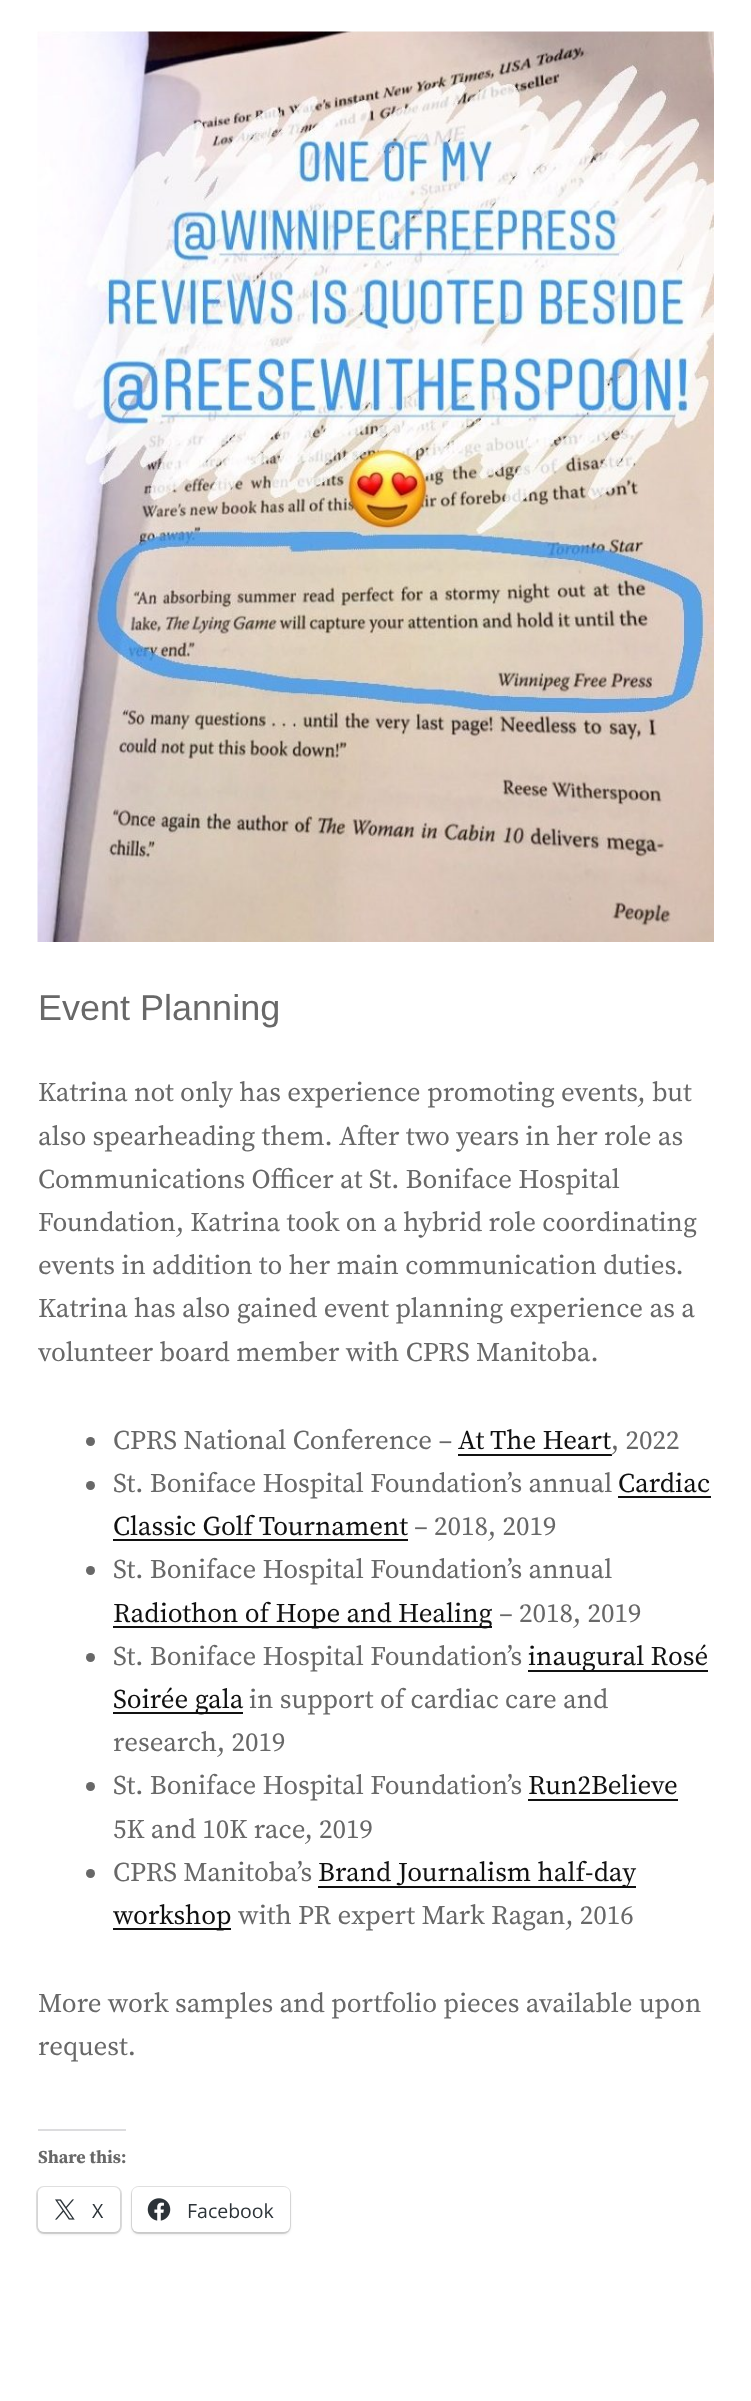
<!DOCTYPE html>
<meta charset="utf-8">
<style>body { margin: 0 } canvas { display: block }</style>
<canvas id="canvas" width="751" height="2401"></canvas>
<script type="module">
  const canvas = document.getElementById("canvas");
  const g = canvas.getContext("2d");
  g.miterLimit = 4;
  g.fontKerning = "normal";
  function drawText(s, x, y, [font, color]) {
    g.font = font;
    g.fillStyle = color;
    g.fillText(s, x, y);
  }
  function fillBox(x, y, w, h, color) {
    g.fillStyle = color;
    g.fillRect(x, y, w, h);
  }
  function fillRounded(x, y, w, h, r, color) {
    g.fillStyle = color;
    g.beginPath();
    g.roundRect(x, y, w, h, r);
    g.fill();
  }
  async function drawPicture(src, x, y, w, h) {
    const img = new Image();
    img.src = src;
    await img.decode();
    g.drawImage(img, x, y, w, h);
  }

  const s1 = ["36px Liberation Sans", "#686868"];
  const s2 = ["27px Source Serif Pro", "#686868"];
  const s3 = ["27px Source Serif Pro", "#111111"];
  const s4 = ["bold 18px Source Serif Pro", "#686868"];
  const s5 = ["19.5px Open Sans", "#2C3338"];

  fillBox(0, 0, 751, 2401, "#FFFFFF");
  await drawPicture("pic1.png", 37, 31, 677, 911);
  drawText("Event Planning", 38, 1020, s1);
  drawText("Katrina not only has experience promoting events, but", 38, 1101, s2);
  drawText("also spearheading them. After two years in her role as", 38, 1145, s2);
  drawText("Communications Officer at St. Boniface Hospital", 38, 1188, s2);
  drawText("Foundation, Katrina took on a hybrid role coordinating", 38, 1231, s2);
  drawText("events in addition to her main communication duties.", 38, 1274, s2);
  drawText("Katrina has also gained event planning experience as a", 38, 1317, s2);
  drawText("volunteer board member with CPRS Manitoba.", 38, 1361, s2);
  g.beginPath();
  g.arc(90.5, 1441.5, 4.5, 0, Math.PI * 2);
  g.fill();
  drawText("CPRS National Conference –", 113, 1449, s2);
  drawText("At The Heart", 458, 1449, s3);
  fillBox(458, 1454, 154, 2, "#111111");
  drawText(", 2022", 611, 1449, s2);
  g.beginPath();
  g.arc(90.5, 1485.5, 4.5, 0, Math.PI * 2);
  g.fill();
  drawText("St. Boniface Hospital Foundation’s annual", 113, 1492, s2);
  drawText("Cardiac", 618, 1492, s3);
  fillBox(618, 1496, 93, 2, "#111111");
  drawText("Classic Golf Tournament", 113, 1535, s3);
  fillBox(113, 1539, 295, 2, "#111111");
  drawText("– 2018, 2019", 414, 1535, s2);
  g.beginPath();
  g.arc(90.5, 1570.5, 4.5, 0, Math.PI * 2);
  g.fill();
  drawText("St. Boniface Hospital Foundation’s annual", 113, 1578, s2);
  fillBox(113, 1626, 379, 2, "#111111");
  drawText("Radiothon of Hope and Healing", 113, 1622, s3);
  drawText("– 2018, 2019", 499, 1622, s2);
  g.beginPath();
  g.arc(90.5, 1657.5, 4.5, 0, Math.PI * 2);
  g.fill();
  drawText("St. Boniface Hospital Foundation’s", 113, 1665, s2);
  fillBox(528, 1670, 180, 2, "#111111");
  drawText("inaugural Rosé", 528, 1665, s3);
  fillBox(113, 1712, 130, 2, "#111111");
  drawText("Soirée gala", 113, 1708, s3);
  drawText("in support of cardiac care and", 249, 1708, s2);
  drawText("research, 2019", 113, 1751, s2);
  g.beginPath();
  g.arc(90.5, 1786.5, 4.5, 0, Math.PI * 2);
  g.fill();
  drawText("St. Boniface Hospital Foundation’s", 113, 1794, s2);
  drawText("Run2Believe", 528, 1794, s3);
  fillBox(528, 1799, 150, 2, "#111111");
  drawText("5K and 10K race, 2019", 113, 1838, s2);
  g.beginPath();
  g.arc(90.5, 1873.5, 4.5, 0, Math.PI * 2);
  g.fill();
  drawText("CPRS Manitoba’s", 113, 1881, s2);
  fillBox(318, 1886, 318, 2, "#111111");
  drawText("Brand Journalism half-day", 318, 1881, s3);
  fillBox(113, 1928, 118, 2, "#111111");
  drawText("workshop", 113, 1924, s3);
  drawText("with PR expert Mark Ragan, 2016", 238, 1924, s2);
  drawText("More work samples and portfolio pieces available upon", 38, 2012, s2);
  drawText("request.", 38, 2055, s2);
  fillBox(38, 2129, 88, 2, "#DCDCDE");
  drawText("Share this:", 38, 2163, s4);
  g.beginPath();
  g.roundRect(37, 2187, 84, 46, 7);
  g.strokeStyle = "#E0E0E0";
  g.lineWidth = 2;
  g.stroke();
  g.fillStyle = "rgba(0, 0, 0, 0.12)";
  g.filter = "blur(1.5px)";
  g.beginPath();
  g.roundRect(38, 2189, 82, 45, 6);
  g.fill();
  g.filter = "none";
  fillRounded(38, 2187, 82, 45, 6, "#FFFFFF");
  await drawPicture("pic2.png", 55, 2199, 20, 21);
  drawText("X", 92, 2218, s5);
  g.beginPath();
  g.roundRect(132, 2187, 158, 46, 7);
  g.stroke();
  g.fillStyle = "rgba(0, 0, 0, 0.12)";
  g.filter = "blur(1.5px)";
  g.beginPath();
  g.roundRect(132, 2189, 158, 45, 6);
  g.fill();
  g.filter = "none";
  fillRounded(132, 2187, 158, 45, 6, "#FFFFFF");
  await drawPicture("pic3.png", 147, 2198, 24, 23);
  drawText("Facebook", 187, 2218, s5);
</script>
